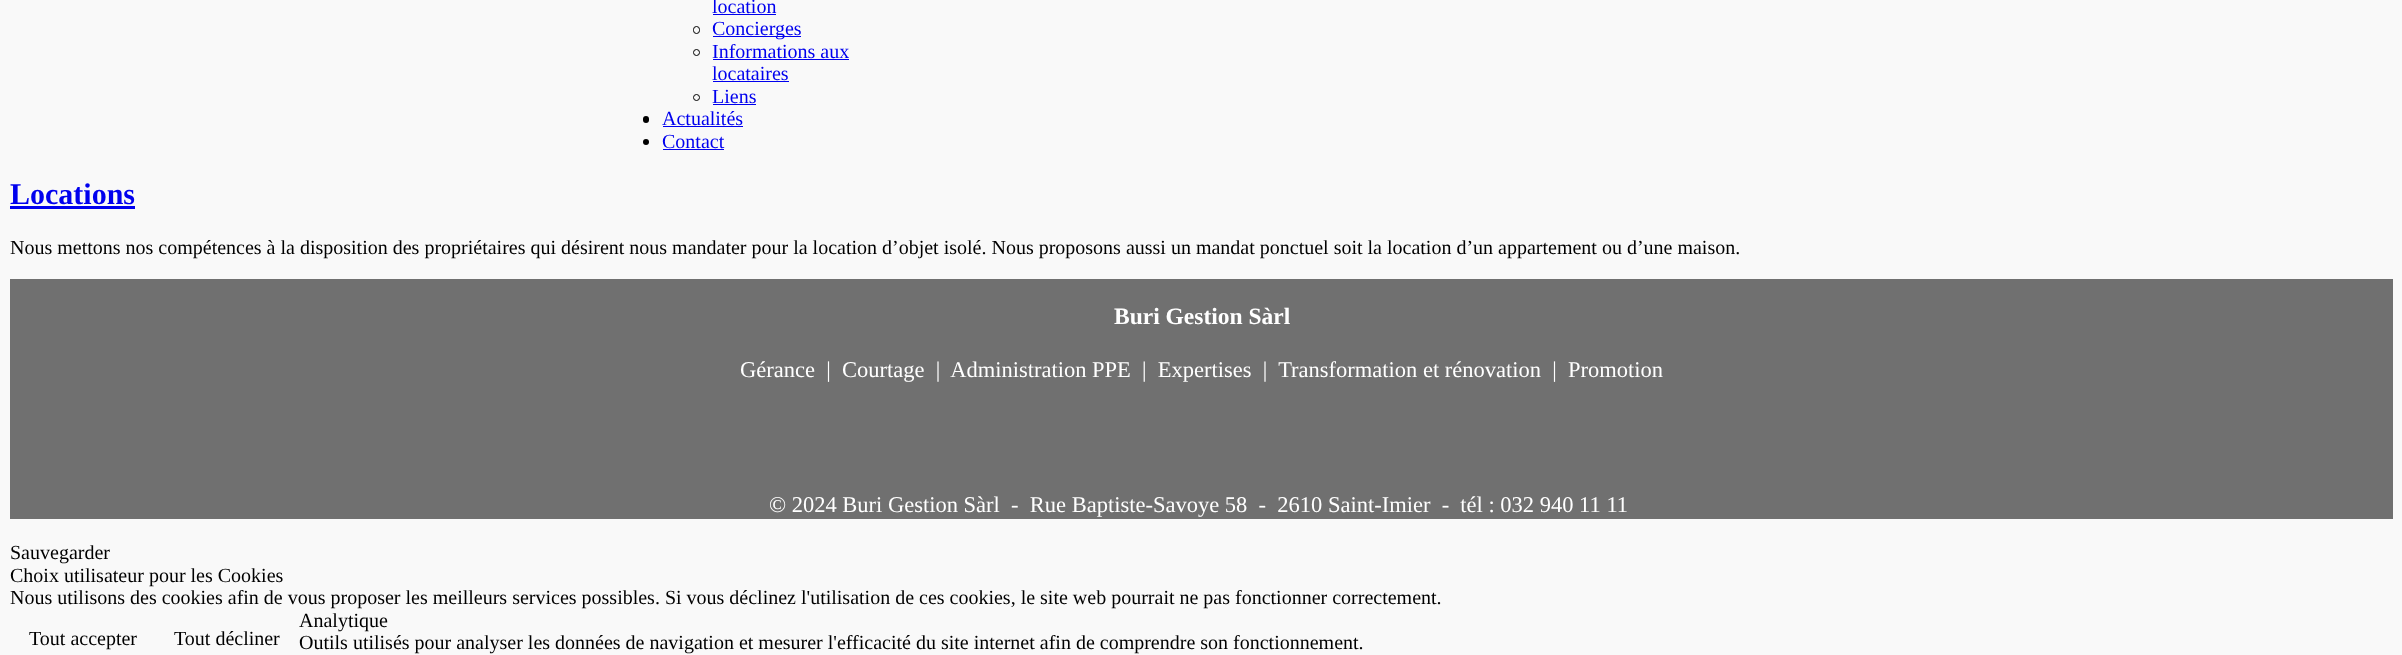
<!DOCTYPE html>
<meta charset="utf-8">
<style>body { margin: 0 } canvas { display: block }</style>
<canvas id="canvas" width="2402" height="655"></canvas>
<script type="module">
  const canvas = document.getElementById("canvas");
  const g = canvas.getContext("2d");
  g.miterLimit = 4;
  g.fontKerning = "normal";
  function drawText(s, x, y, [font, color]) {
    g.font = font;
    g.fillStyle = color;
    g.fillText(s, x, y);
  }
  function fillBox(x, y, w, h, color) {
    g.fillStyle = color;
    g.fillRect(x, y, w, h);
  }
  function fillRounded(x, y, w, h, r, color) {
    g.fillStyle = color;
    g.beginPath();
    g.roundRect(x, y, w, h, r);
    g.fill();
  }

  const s1 = ["20px Liberation Serif", "#0000EE"];
  const s2 = ["bold 30px Liberation Serif", "#0000EE"];
  const s3 = ["20px Liberation Serif", "#000000"];
  const s4 = ["bold 23.5px Liberation Serif", "#FFFFFF"];
  const s5 = ["22.5px Liberation Serif", "#FFFFFF"];

  fillBox(0, 0, 2402, 655, "#F9F9F9");
  drawText("location", 712, 13, s1);
  fillBox(713, 14, 63, 1, "#0000EE");
  g.beginPath();
  g.roundRect(693.5, 26.5, 6, 7, 3);
  g.strokeStyle = "#000000";
  g.stroke();
  fillBox(713, 36, 88, 1, "#0000EE");
  drawText("Concierges", 712, 35, s1);
  g.beginPath();
  g.arc(696.5, 52.5, 3, 0, Math.PI * 2);
  g.stroke();
  drawText("Informations aux", 712, 58, s1);
  fillBox(713, 59, 136, 1, "#0000EE");
  drawText("locataires", 712, 80, s1);
  fillBox(713, 81, 76, 1, "#0000EE");
  g.beginPath();
  g.arc(696.5, 97.5, 3, 0, Math.PI * 2);
  g.stroke();
  drawText("Liens", 712, 103, s1);
  fillBox(713, 104, 43, 1, "#0000EE");
  fillRounded(643, 116, 6, 7, 3, "#000000");
  drawText("Actualités", 662, 125, s1);
  fillBox(663, 126, 80, 1, "#0000EE");
  g.fillStyle = "#000000";
  g.beginPath();
  g.arc(646, 142, 3, 0, Math.PI * 2);
  g.fill();
  drawText("Contact", 662, 148, s1);
  fillBox(663, 149, 61, 1, "#0000EE");
  drawText("Locations", 10, 204, s2);
  fillBox(10, 206, 125, 3, "#0000EE");
  drawText("Nous mettons nos compétences à la disposition des propriétaires qui désirent nous mandater pour la location d’objet isolé. Nous proposons aussi un mandat ponctuel soit la location d’un appartement ou d’une maison.", 10, 254, s3);
  fillBox(10, 279, 2383, 240, "#707070");
  drawText("Buri Gestion Sàrl", 1114, 324, s4);
  drawText("Gérance  |  Courtage  |  Administration PPE  |  Expertises  |  Transformation et rénovation  |  Promotion", 740, 377, s5);
  drawText("© 2024 Buri Gestion Sàrl  -  Rue Baptiste-Savoye 58  -  2610 Saint-Imier  -  tél : 032 940 11 11", 769, 512, s5);
  drawText("Sauvegarder", 10, 559, s3);
  drawText("Choix utilisateur pour les Cookies", 10, 582, s3);
  drawText("Nous utilisons des cookies afin de vous proposer les meilleurs services possibles. Si vous déclinez l'utilisation de ces cookies, le site web pourrait ne pas fonctionner correctement.", 10, 604, s3);
  drawText("Tout accepter", 29, 645, s3);
  drawText("Tout décliner", 174, 645, s3);
  drawText("Analytique", 299, 627, s3);
  drawText("Outils utilisés pour analyser les données de navigation et mesurer l'efficacité du site internet afin de comprendre son fonctionnement.", 299, 649, s3);
</script>
